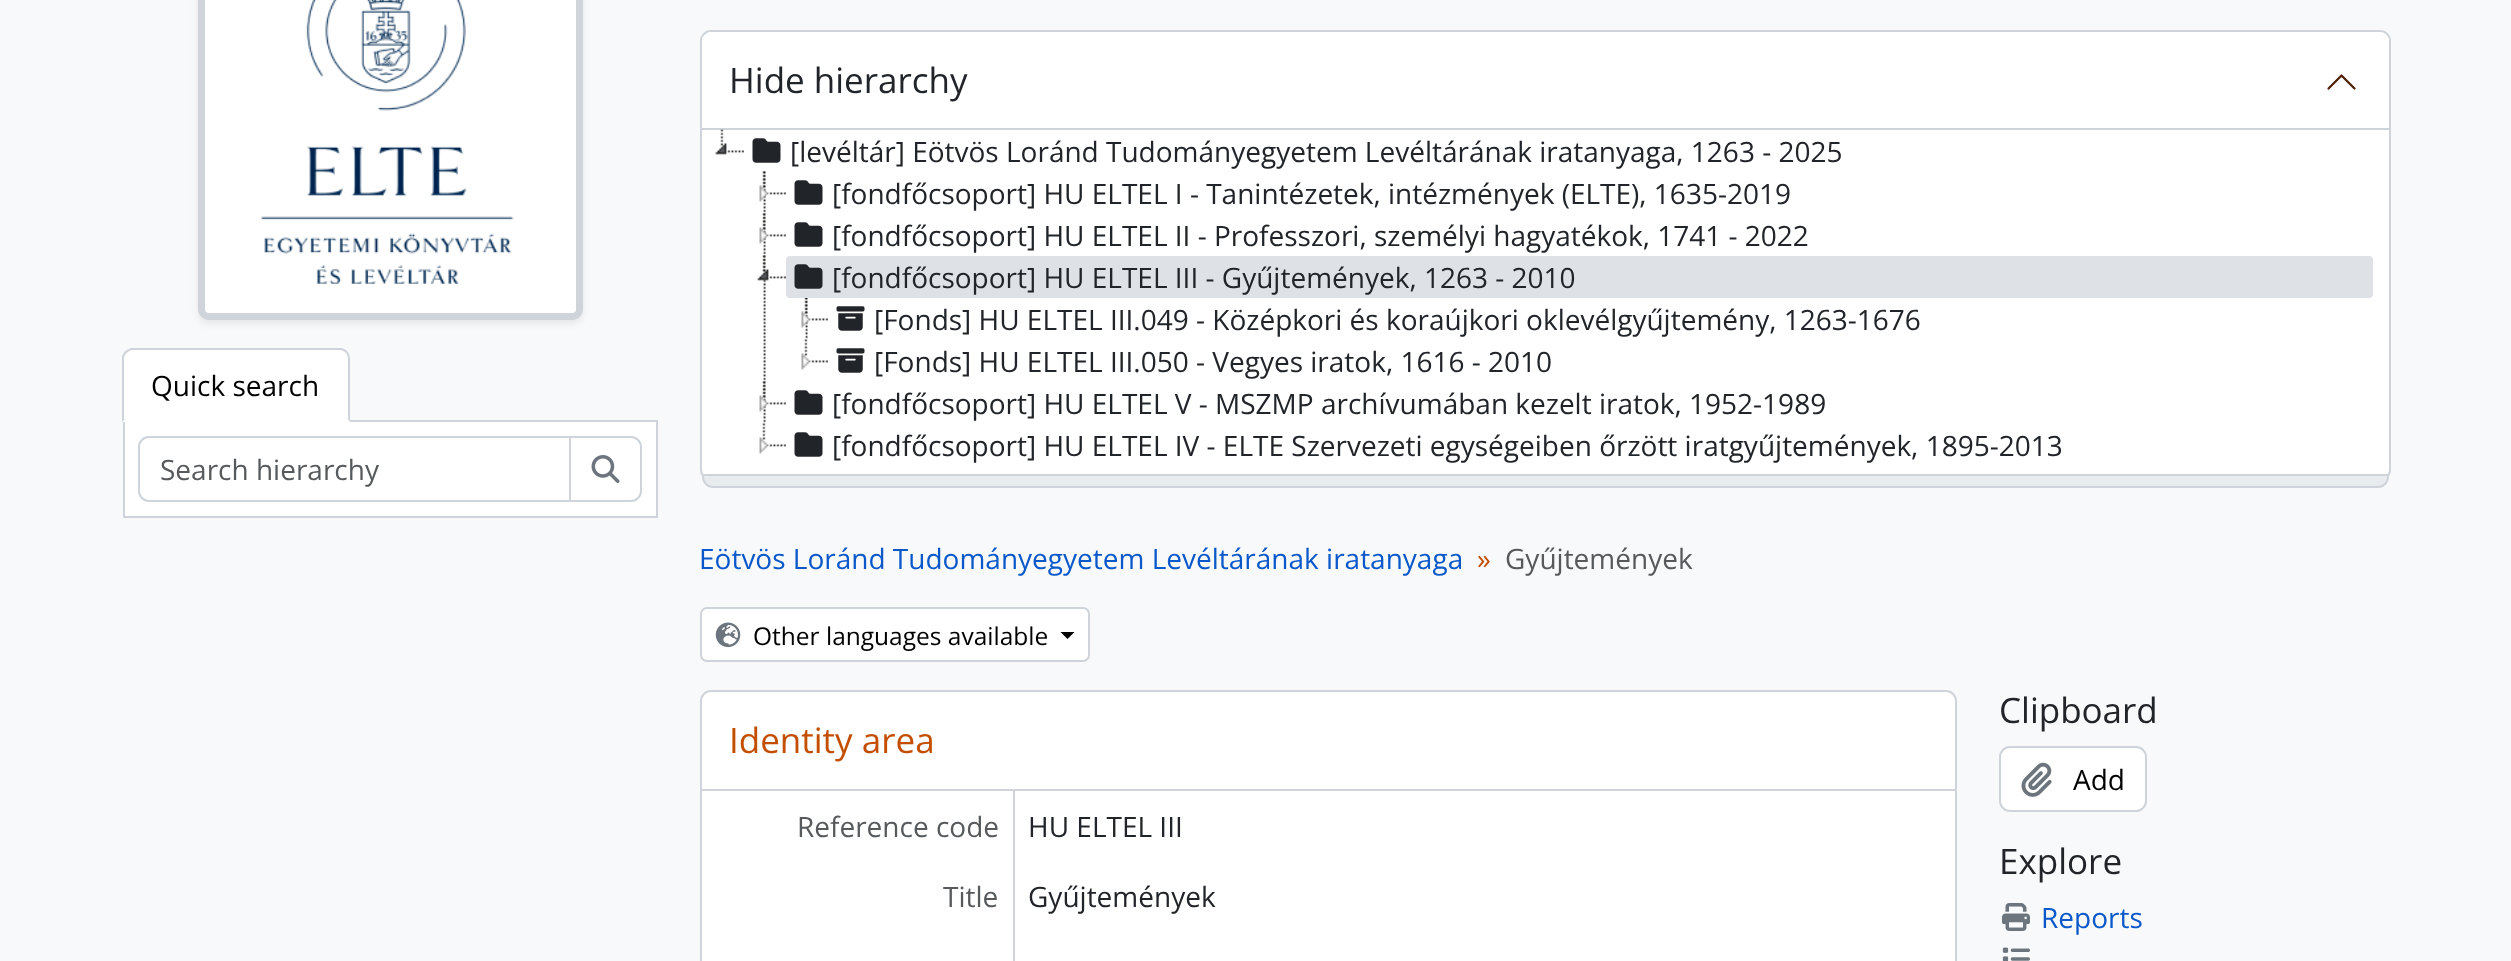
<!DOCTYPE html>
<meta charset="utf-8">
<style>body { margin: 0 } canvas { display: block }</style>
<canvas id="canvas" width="2511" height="961"></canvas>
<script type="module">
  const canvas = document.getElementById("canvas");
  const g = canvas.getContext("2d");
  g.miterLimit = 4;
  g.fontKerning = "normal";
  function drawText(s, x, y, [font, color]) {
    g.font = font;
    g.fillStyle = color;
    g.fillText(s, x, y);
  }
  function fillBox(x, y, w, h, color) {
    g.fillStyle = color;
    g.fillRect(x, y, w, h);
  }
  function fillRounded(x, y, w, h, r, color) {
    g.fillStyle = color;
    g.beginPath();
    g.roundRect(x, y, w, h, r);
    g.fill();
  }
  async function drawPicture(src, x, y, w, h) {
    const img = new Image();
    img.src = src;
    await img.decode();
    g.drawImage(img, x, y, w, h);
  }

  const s1 = ["28px Open Sans", "#000000"];
  const s2 = ["28px Open Sans", "#575A5D"];
  const s3 = ["35px Open Sans", "#212529"];
  const s4 = ["28px Open Sans", "#212529"];
  const s5 = ["28px Open Sans", "#0A58CA"];
  const s6 = ["28px Open Sans", "#C44E00"];
  const s7 = ["24.5px Open Sans", "#000000"];
  const s8 = ["35px Open Sans", "#C44E00"];

  fillBox(0, 0, 2511, 961, "#F8F9FA");
  g.fillStyle = "rgba(0, 0, 0, 0.07)";
  g.filter = "blur(3.5px)";
  g.beginPath();
  g.roundRect(198, -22, 385, 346, 11);
  g.fill();
  g.filter = "none";
  g.fillStyle = "#FFFFFF";
  g.beginPath();
  g.roundRect(201.5, -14.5, 378, 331, 7.5);
  g.fill();
  g.strokeStyle = "#CED4DA";
  g.lineWidth = 7;
  g.stroke();
  await drawPicture("pic1.png", 260, 0, 254, 285);
  g.beginPath();
  g.rect(124, 421, 533, 96);
  g.fill();
  g.lineWidth = 2;
  g.stroke();
  g.beginPath();
  g.roundRect(123, 348, 227, 74, [11, 11, 0, 0]);
  g.fill();
  g.fillStyle = "#CED4DA";
  g.beginPath();
  g.moveTo(133, 350);
  g.bezierCurveTo(131, 350, 128, 351, 127, 353);
  g.lineTo(125, 351);
  g.bezierCurveTo(127, 350, 129, 349, 131, 348);
  g.lineTo(342, 348);
  g.bezierCurveTo(344, 349, 346, 350, 347, 351);
  g.lineTo(346, 353);
  g.bezierCurveTo(344, 351, 342, 350, 340, 350);
  g.closePath();
  g.fill();
  g.beginPath();
  g.moveTo(350, 422);
  g.lineTo(350, 359);
  g.bezierCurveTo(350, 356, 349, 353, 347, 351);
  g.lineTo(346, 353);
  g.bezierCurveTo(347, 354, 348, 357, 348, 359);
  g.lineTo(348, 420);
  g.closePath();
  g.fill();
  g.fillStyle = "#FFFFFF";
  g.beginPath();
  g.moveTo(350, 422);
  g.lineTo(348, 420);
  g.lineTo(124, 420);
  g.lineTo(122, 422);
  g.closePath();
  g.fill();
  g.fillStyle = "#CED4DA";
  g.beginPath();
  g.moveTo(122, 422);
  g.lineTo(122, 356);
  g.lineTo(125, 351);
  g.lineTo(127, 353);
  g.bezierCurveTo(125, 354, 124, 356, 124, 359);
  g.lineTo(124, 420);
  g.closePath();
  g.fill();
  drawText("Quick search", 151, 396, s1);
  g.beginPath();
  g.roundRect(139, 437, 431, 64, [10, 0, 0, 10]);
  g.stroke();
  drawText("Search hierarchy", 160, 480, s2);
  g.fillStyle = "#FFFFFF";
  g.beginPath();
  g.roundRect(570, 437, 71, 64, [0, 10, 10, 0]);
  g.fill();
  g.stroke();
  await drawPicture("pic2.png", 591, 455, 29, 28);
  g.beginPath();
  g.roundRect(701, 31, 1689, 449, 10);
  g.fill();
  g.stroke();
  g.beginPath();
  g.roundRect(702, 32, 1687, 98, [9, 9, 0, 0]);
  g.fill();
  fillBox(702, 128, 1687, 2, "#CED4DA");
  drawText("Hide hierarchy", 729, 93, s3);
  g.beginPath();
  g.moveTo(2354.5, 88.5);
  g.lineTo(2341.5, 75.5);
  g.lineTo(2328.5, 88.5);
  g.strokeStyle = "#4E1F00";
  g.lineWidth = 2.2;
  g.lineCap = "round";
  g.lineJoin = "round";
  g.stroke();
  await drawPicture("pic3.png", 715, 129, 29, 26);
  await drawPicture("pic4.png", 752, 138, 29, 25);
  drawText("[levéltár] Eötvös Loránd Tudományegyetem Levéltárának iratanyaga, 1263 - 2025", 790, 162, s4);
  await drawPicture("pic5.png", 763, 171, 3, 42);
  await drawPicture("pic6.png", 759, 171, 27, 31);
  await drawPicture("pic4.png", 794, 180, 29, 25);
  drawText("[fondfőcsoport] HU ELTEL I - Tanintézetek, intézmények (ELTE), 1635-2019", 832, 204, s4);
  await drawPicture("pic5.png", 763, 213, 3, 42);
  await drawPicture("pic6.png", 759, 213, 27, 31);
  await drawPicture("pic4.png", 794, 222, 29, 25);
  drawText("[fondfőcsoport] HU ELTEL II - Professzori, személyi hagyatékok, 1741 - 2022", 832, 246, s4);
  await drawPicture("pic7.png", 763, 255, 3, 126);
  await drawPicture("pic8.png", 757, 255, 29, 26);
  fillRounded(786, 256, 1587, 42, 4, "#DEE2E6");
  await drawPicture("pic9.png", 794, 264, 29, 25);
  drawText("[fondfőcsoport] HU ELTEL III - Gyűjtemények, 1263 - 2010", 832, 288, s4);
  await drawPicture("pic10.png", 805, 298, 3, 41);
  await drawPicture("pic11.png", 801, 298, 27, 30);
  await drawPicture("pic12.png", 836, 306, 29, 25);
  drawText("[Fonds] HU ELTEL III.049 - Középkori és koraújkori oklevélgyűjtemény, 1263-1676", 874, 330, s4);
  await drawPicture("pic13.png", 801, 339, 27, 31);
  await drawPicture("pic12.png", 836, 348, 29, 25);
  drawText("[Fonds] HU ELTEL III.050 - Vegyes iratok, 1616 - 2010", 874, 372, s4);
  await drawPicture("pic5.png", 763, 381, 3, 42);
  await drawPicture("pic6.png", 759, 381, 27, 31);
  await drawPicture("pic4.png", 794, 390, 29, 25);
  drawText("[fondfőcsoport] HU ELTEL V - MSZMP archívumában kezelt iratok, 1952-1989", 832, 414, s4);
  await drawPicture("pic13.png", 759, 423, 27, 31);
  await drawPicture("pic4.png", 794, 432, 29, 25);
  drawText("[fondfőcsoport] HU ELTEL IV - ELTE Szervezeti egységeiben őrzött iratgyűjtemények, 1895-2013", 832, 456, s4);
  g.fillStyle = "#E9ECEF";
  g.beginPath();
  g.roundRect(703, 475, 1685, 12, [0, 0, 10, 10]);
  g.fill();
  g.strokeStyle = "#CED4DA";
  g.lineWidth = 2;
  g.lineJoin = "miter";
  g.stroke();
  drawText("Eötvös Loránd Tudományegyetem Levéltárának iratanyaga", 699, 569, s5);
  drawText("»", 1477, 569, s6);
  drawText("Gyűjtemények", 1505, 569, s2);
  g.fillStyle = "#FFFFFF";
  g.beginPath();
  g.roundRect(701, 608, 388, 53, 6);
  g.fill();
  g.stroke();
  await drawPicture("pic14.png", 715, 622, 26, 26);
  drawText("Other languages available", 753, 645, s7);
  g.beginPath();
  g.moveTo(1060.5, 632);
  g.lineTo(1074.5, 632);
  g.lineTo(1067.5, 639);
  g.closePath();
  g.fill();
  g.fillStyle = "#FFFFFF";
  g.beginPath();
  g.roundRect(701, 691, 1255, 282, 10);
  g.fill();
  g.stroke();
  fillBox(702, 789, 1253, 2, "#CED4DA");
  drawText("Identity area", 729, 753, s8);
  fillBox(1013, 791, 2, 170, "#CED4DA");
  drawText("Reference code", 797, 837, s2);
  drawText("HU ELTEL III", 1028, 837, s4);
  drawText("Title", 943, 907, s2);
  drawText("Gyűjtemények", 1028, 907, s4);
  drawText("Clipboard", 1999, 723, s3);
  g.fillStyle = "#FFFFFF";
  g.beginPath();
  g.roundRect(2000, 747, 146, 64, 10);
  g.fill();
  g.stroke();
  await drawPicture("pic15.png", 2021, 762, 31, 35);
  drawText("Add", 2073, 790, s1);
  drawText("Explore", 1999, 874, s3);
  await drawPicture("pic16.png", 2002, 903, 28, 28);
  drawText("Reports", 2041, 928, s5);
  await drawPicture("pic17.png", 2002, 947, 28, 14);
</script>
